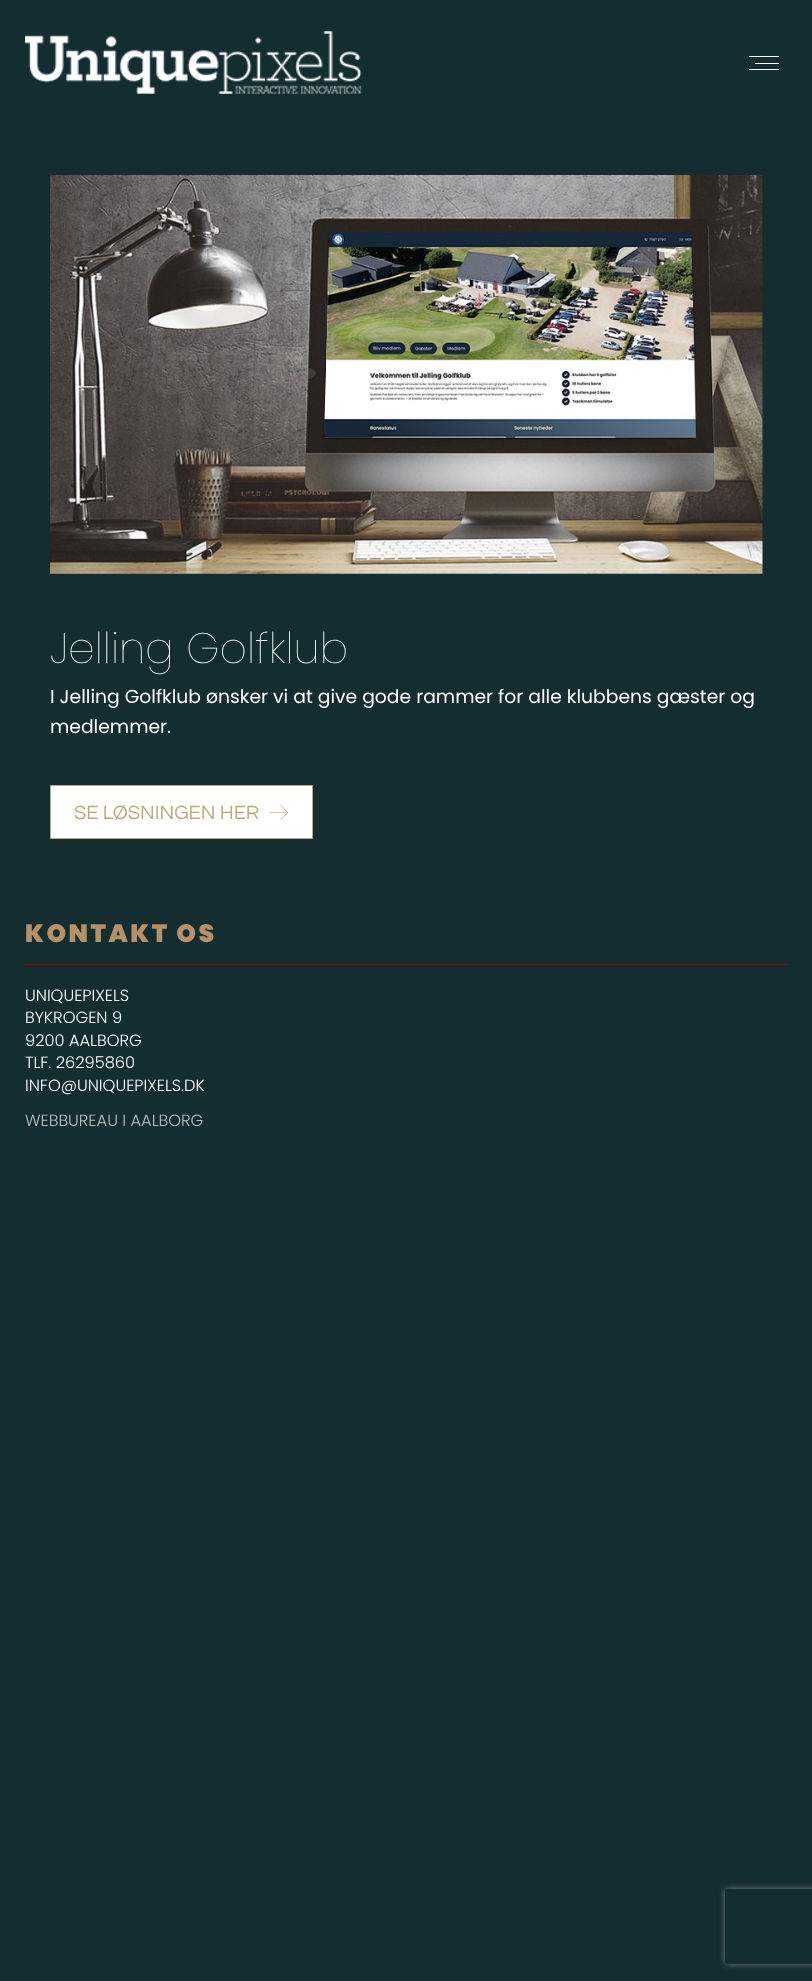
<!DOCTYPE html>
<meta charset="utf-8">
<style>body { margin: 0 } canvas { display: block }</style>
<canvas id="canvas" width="812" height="1981"></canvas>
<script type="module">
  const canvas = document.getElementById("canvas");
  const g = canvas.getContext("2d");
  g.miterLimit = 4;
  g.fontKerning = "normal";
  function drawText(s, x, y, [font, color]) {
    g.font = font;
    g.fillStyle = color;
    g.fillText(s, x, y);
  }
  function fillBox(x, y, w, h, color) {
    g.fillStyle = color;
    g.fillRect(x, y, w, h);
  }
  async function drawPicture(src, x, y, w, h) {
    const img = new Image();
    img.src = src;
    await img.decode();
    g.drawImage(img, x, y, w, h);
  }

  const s1 = ["100 42.5px Poppins", "#FFFFFF"];
  const s2 = ["18.75px Poppins", "#FFFFFF"];
  const s3 = ["20px Questrial", "#BCA97C"];
  const s4 = ["900 25px Poppins", "#B69167"];
  const s5 = ["300 16.25px Poppins", "#FFFFFF"];
  const s6 = ["300 16.25px Poppins", "#BFBFBF"];

  fillBox(0, 0, 812, 1981, "#132D30");
  await drawPicture("pic1.png", 25, 31, 337, 63);
  fillBox(749, 56, 30, 1, "#FFFFFF");
  fillBox(755, 63, 24, 1, "#FFFFFF");
  fillBox(749, 69, 30, 1, "#FFFFFF");
  await drawPicture("pic2.png", 50, 175, 713, 399);
  drawText("Jelling Golfklub", 50, 663, s1);
  drawText("I Jelling Golfklub ønsker vi at give gode rammer for alle klubbens gæster og", 50, 703, s2);
  drawText("medlemmer.", 50, 733, s2);
  g.beginPath();
  g.rect(50.5, 785.5, 262, 53);
  g.fill();
  g.strokeStyle = "#BCA97C";
  g.stroke();
  drawText("SE LØSNINGEN HER", 74, 819, s3);
  await drawPicture("pic3.png", 269, 805, 20, 15);
  fillBox(25, 964, 763, 1, "#990000");
  g.letterSpacing = "2.5px";
  drawText("KONTAKT OS", 25, 942, s4);
  g.letterSpacing = "0px";
  drawText("UNIQUEPIXELS", 25, 1001, s5);
  drawText("BYKROGEN 9", 25, 1023, s5);
  drawText("9200 AALBORG", 25, 1046, s5);
  drawText("TLF. 26295860", 25, 1068, s5);
  drawText("INFO@UNIQUEPIXELS.DK", 25, 1091, s5);
  drawText("WEBBUREAU I AALBORG", 25, 1126, s6);
  g.save();
  g.beginPath();
  g.moveTo(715, 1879);
  g.lineTo(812, 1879);
  g.lineTo(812, 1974);
  g.lineTo(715, 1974);
  g.closePath();
  g.moveTo(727.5, 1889);
  g.lineTo(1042.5, 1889);
  g.bezierCurveTo(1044, 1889, 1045, 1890, 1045, 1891.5);
  g.lineTo(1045, 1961.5);
  g.bezierCurveTo(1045, 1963, 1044, 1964, 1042.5, 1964);
  g.lineTo(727.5, 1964);
  g.bezierCurveTo(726, 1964, 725, 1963, 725, 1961.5);
  g.lineTo(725, 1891.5);
  g.bezierCurveTo(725, 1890, 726, 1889, 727.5, 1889);
  g.closePath();
  g.clip("evenodd");
  g.fillStyle = "#808080";
  g.filter = "blur(3px)";
  g.beginPath();
  g.roundRect(725, 1889, 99, 75, 2.5);
  g.fill();
  g.filter = "none";
  g.restore();
</script>
